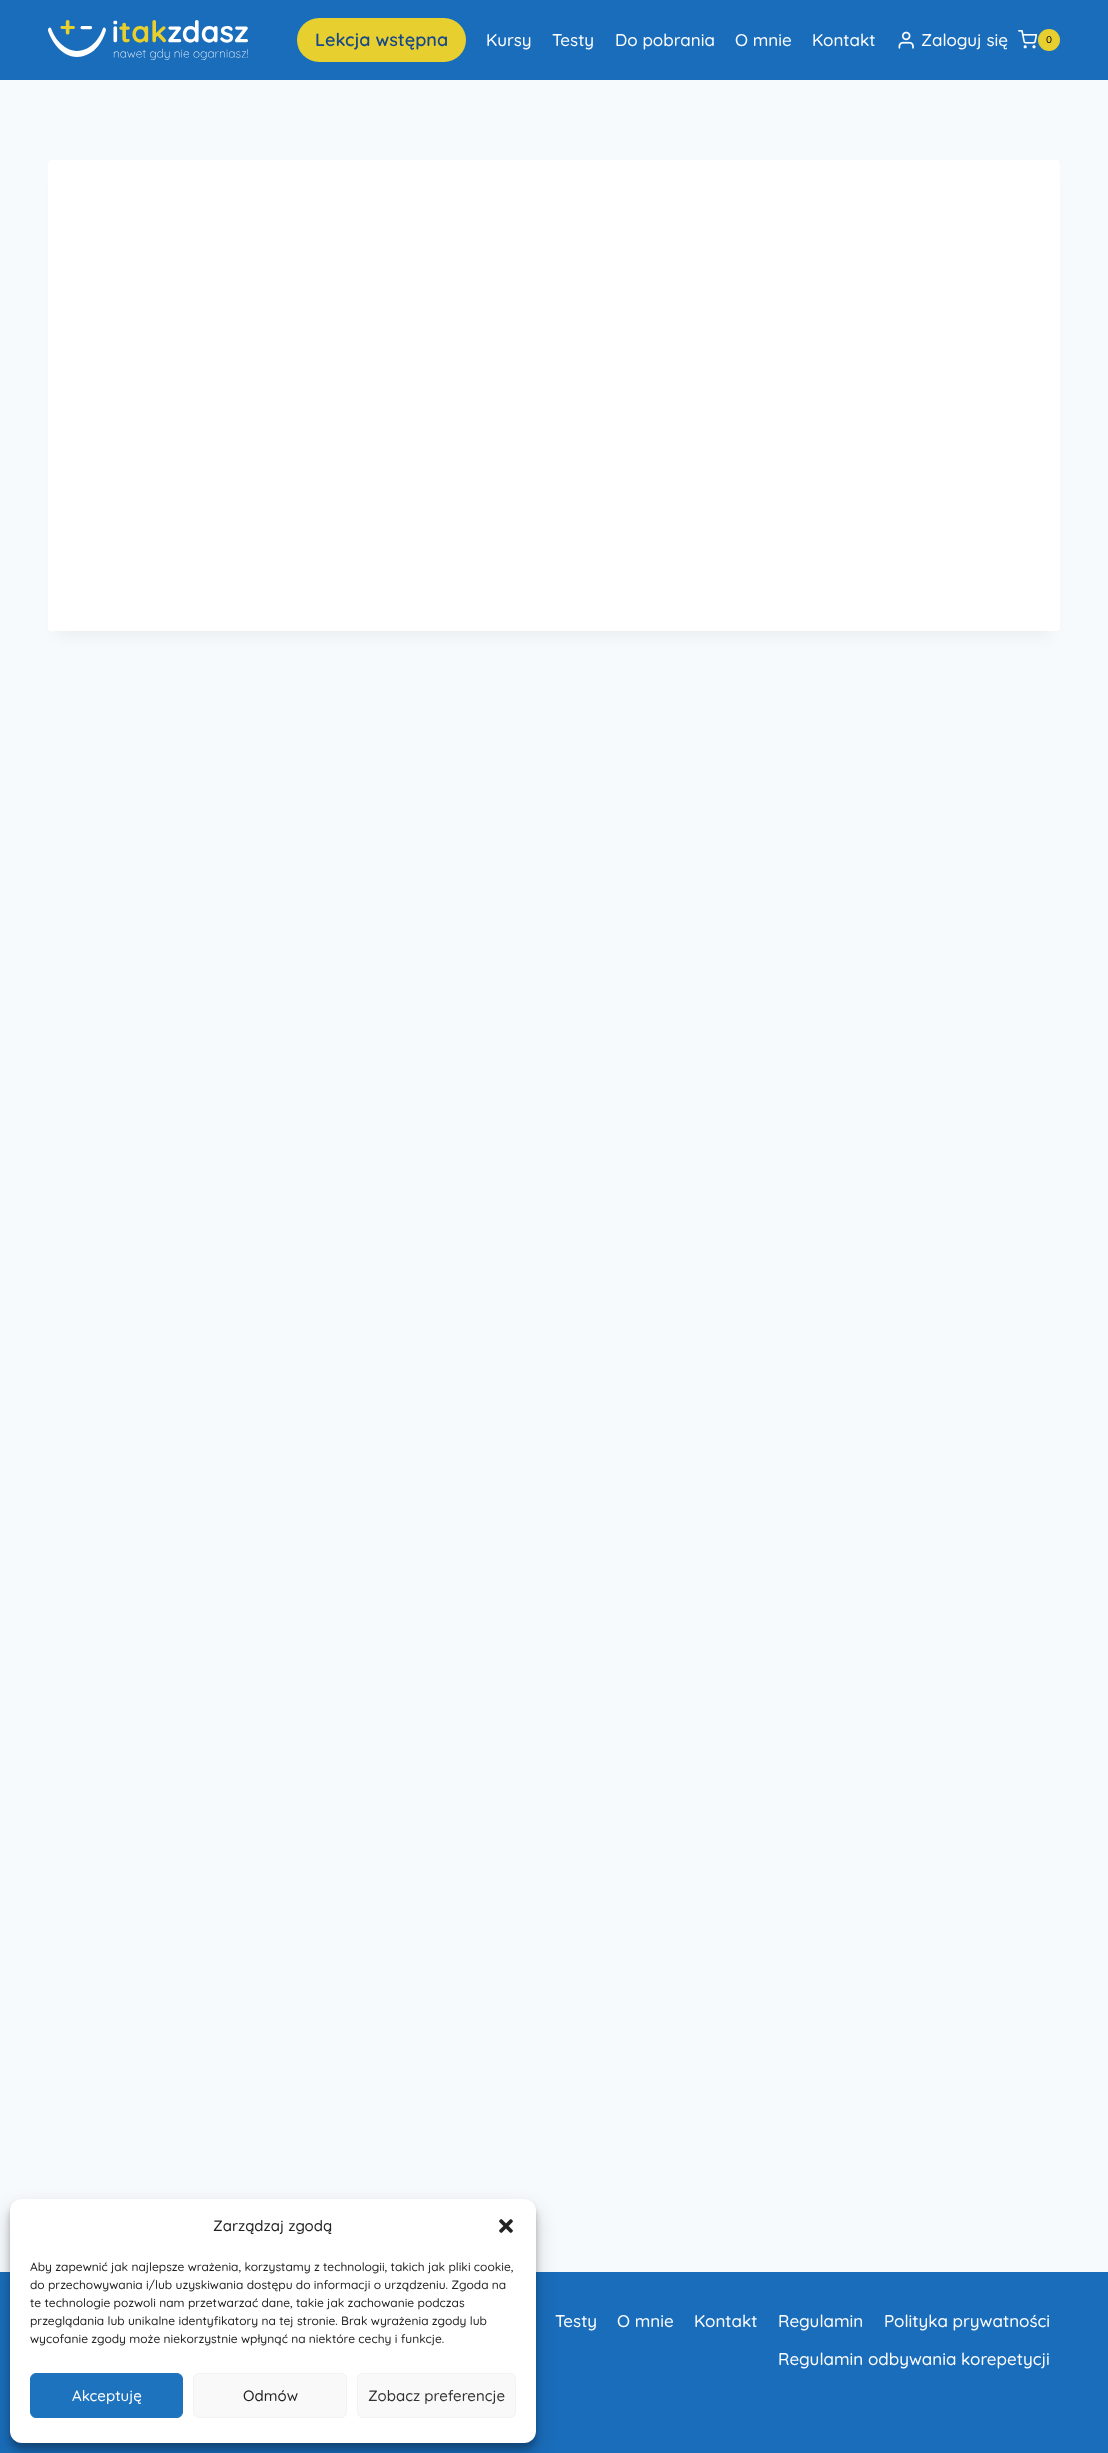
<!DOCTYPE html>
<meta charset="utf-8">
<style>body { margin: 0 } canvas { display: block }</style>
<canvas id="canvas" width="1108" height="2453"></canvas>
<script type="module">
  const canvas = document.getElementById("canvas");
  const g = canvas.getContext("2d");
  g.miterLimit = 4;
  g.fontKerning = "normal";
  function drawText(s, x, y, [font, color]) {
    g.font = font;
    g.fillStyle = color;
    g.fillText(s, x, y);
  }
  function fillBox(x, y, w, h, color) {
    g.fillStyle = color;
    g.fillRect(x, y, w, h);
  }
  function fillRounded(x, y, w, h, r, color) {
    g.fillStyle = color;
    g.beginPath();
    g.roundRect(x, y, w, h, r);
    g.fill();
  }
  async function drawPicture(src, x, y, w, h) {
    const img = new Image();
    img.src = src;
    await img.decode();
    g.drawImage(img, x, y, w, h);
  }

  const s1 = ["500 15px Quicksand", "#222222"];
  const s2 = ["500 12px Quicksand", "#222222"];
  const s3 = ["500 15px Quicksand", "#FFFFFF"];
  const s4 = ["500 15px Quicksand", "#333333"];
  const s5 = ["600 18px Quicksand", "#174988"];
  const s6 = ["500 17px Quicksand", "#FFFFFF"];
  const s7 = ["500 10px Quicksand", "#000000"];

  fillBox(0, 0, 1108, 2453, "#F7FAFC");
  fillBox(0, 2272, 1108, 181, "#1A6DBB");
  g.fillStyle = "rgba(0, 0, 0, 0.23)";
  g.filter = "blur(3px)";
  g.beginPath();
  g.roundRect(10, 2205, 526, 244, 12);
  g.fill();
  g.filter = "none";
  g.fillStyle = "rgba(0, 0, 0, 0.19)";
  g.filter = "blur(10px)";
  g.beginPath();
  g.roundRect(10, 2209, 526, 244, 12);
  g.fill();
  g.filter = "none";
  fillRounded(10, 2199, 526, 244, 12, "#FFFFFF");
  drawText("Zarządzaj zgodą", 213, 2231, s1);
  await drawPicture("pic1.png", 499, 2219, 14, 14);
  drawText("Aby zapewnić jak najlepsze wrażenia, korzystamy z technologii, takich jak pliki cookie,", 30, 2271, s2);
  drawText("do przechowywania i/lub uzyskiwania dostępu do informacji o urządzeniu. Zgoda na", 30, 2289, s2);
  drawText("te technologie pozwoli nam przetwarzać dane, takie jak zachowanie podczas", 30, 2307, s2);
  drawText("przeglądania lub unikalne identyfikatory na tej stronie. Brak wyrażenia zgody lub", 30, 2325, s2);
  drawText("wycofanie zgody może niekorzystnie wpłynąć na niektóre cechy i funkcje.", 30, 2343, s2);
  g.fillStyle = "#1E73BE";
  g.beginPath();
  g.roundRect(30.5, 2373.5, 152, 44, 5.5);
  g.fill();
  g.strokeStyle = "#1E73BE";
  g.stroke();
  drawText("Akceptuję", 72, 2401, s3);
  g.fillStyle = "#F9F9F9";
  g.beginPath();
  g.roundRect(193.5, 2373.5, 153, 44, 5.5);
  g.fill();
  g.strokeStyle = "#F2F2F2";
  g.stroke();
  drawText("Odmów", 243, 2401, s1);
  g.fillStyle = "#F9F9F9";
  g.beginPath();
  g.roundRect(357.5, 2373.5, 158, 44, 5.5);
  g.fill();
  g.stroke();
  drawText("Zobacz preferencje", 368, 2401, s4);
  fillBox(0, 0, 1108, 80, "#1A6DBB");
  await drawPicture("pic2.png", 48, 20, 200, 40);
  fillRounded(297, 18, 169, 44, 22, "#E7CF2F");
  drawText("Lekcja wstępna", 315, 46, s5);
  drawText("Kursy", 486, 46, s6);
  drawText("Testy", 552, 46, s6);
  drawText("Do pobrania", 615, 46, s6);
  drawText("O mnie", 735, 46, s6);
  drawText("Kontakt", 812, 46, s6);
  await drawPicture("pic3.png", 898, 31, 16, 18);
  drawText("Zaloguj się", 921, 46, s6);
  await drawPicture("pic4.png", 1018, 30, 19, 19);
  g.fillStyle = "#E7CF2F";
  g.beginPath();
  g.arc(1049, 40, 11, 0, Math.PI * 2);
  g.fill();
  drawText("0", 1046, 43, s7);
  g.fillStyle = "rgba(0, 0, 0, 0.05)";
  g.filter = "blur(7.5px)";
  g.beginPath();
  g.rect(58, 185, 992, 451);
  g.fill();
  g.filter = "none";
  fillRounded(48, 160, 1012, 471, 4, "#FFFFFF");
  drawText("Testy", 555, 2327, s6);
  drawText("O mnie", 617, 2327, s6);
  drawText("Kontakt", 694, 2327, s6);
  drawText("Regulamin", 778, 2327, s6);
  drawText("Polityka prywatności", 884, 2327, s6);
  drawText("Regulamin odbywania korepetycji", 778, 2365, s6);
</script>
